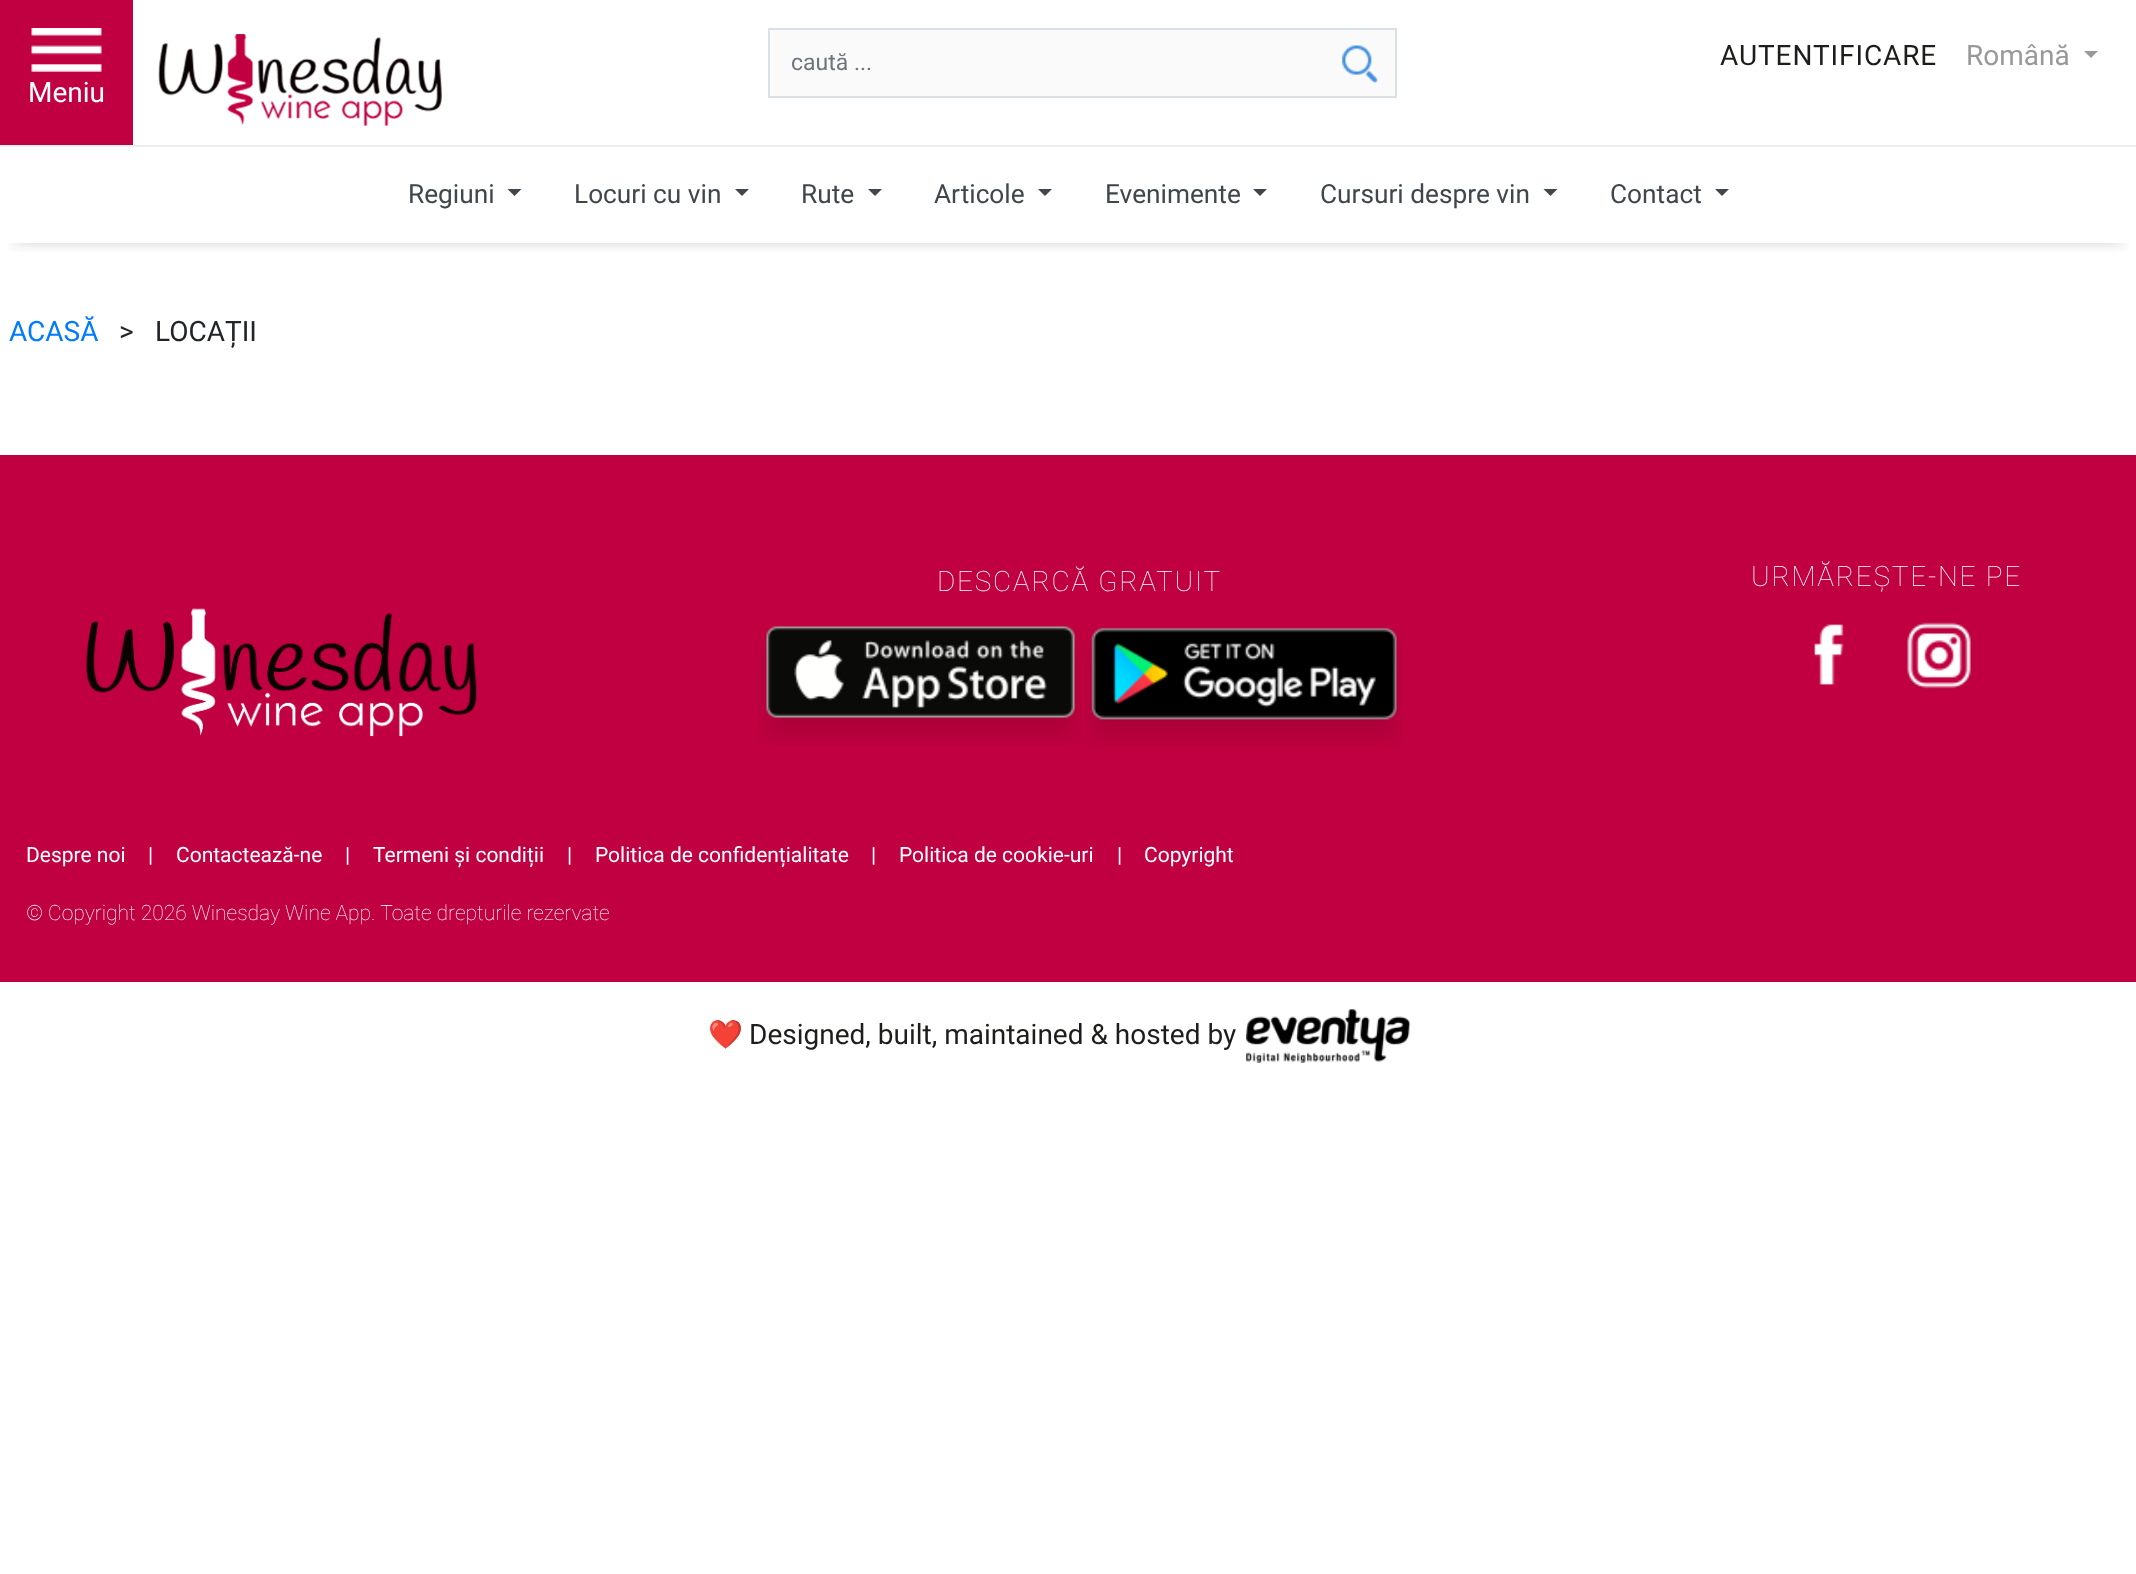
<!DOCTYPE html>
<meta charset="utf-8">
<style>body { margin: 0 } canvas { display: block }</style>
<canvas id="canvas" width="2136" height="1574"></canvas>
<script type="module">
  const canvas = document.getElementById("canvas");
  const g = canvas.getContext("2d");
  g.miterLimit = 4;
  g.fontKerning = "normal";
  function drawText(s, x, y, [font, color]) {
    g.font = font;
    g.fillStyle = color;
    g.fillText(s, x, y);
  }
  function fillBox(x, y, w, h, color) {
    g.fillStyle = color;
    g.fillRect(x, y, w, h);
  }
  async function drawPicture(src, x, y, w, h) {
    const img = new Image();
    img.src = src;
    await img.decode();
    g.drawImage(img, x, y, w, h);
  }

  const s1 = ["23px Roboto", "#6C757D"];
  const s2 = ["28px Roboto", "#1D1D1B"];
  const s3 = ["28px Roboto", "#999999"];
  const s4 = ["28px Roboto", "#FFFFFF"];
  const s5 = ["26.25px Roboto", "#3F474C"];
  const s6 = ["28px Roboto", "#007BFF"];
  const s7 = ["28px Roboto", "#212529"];
  const s8 = ["100 28px Roboto", "#FFFFFF"];
  const s9 = ["21px Roboto", "#FFFFFF"];
  const s10 = ["100 21px Roboto", "#FFFFFF"];
  const s11 = ["28px Noto Color Emoji", "#1D1D1B"];

  fillBox(0, 0, 2136, 1574, "#FFFFFF");
  await drawPicture("pic1.png", 158, 34, 284, 92);
  fillBox(770, 30, 625, 66, "#FAFAFA");
  await drawPicture("pic2.png", 1342, 45, 36, 38);
  g.strokeStyle = "#DBE0E5";
  g.lineWidth = 2;
  g.strokeRect(769, 29, 627, 68);
  drawText("caută ...", 791, 70, s1);
  g.letterSpacing = "0.9px";
  drawText("AUTENTIFICARE", 1720, 65, s2);
  g.letterSpacing = "0px";
  drawText("Română", 1966, 65, s3);
  g.beginPath();
  g.moveTo(2084, 51);
  g.lineTo(2098, 51);
  g.lineTo(2091, 58);
  g.closePath();
  g.fill();
  fillBox(0, 0, 133, 145, "#C00040");
  await drawPicture("pic3.png", 31, 28, 71, 44);
  drawText("Meniu", 28, 102, s4);
  g.save();
  g.beginPath();
  g.rect(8, 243, 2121, 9);
  g.clip();
  g.fillStyle = "rgba(17, 17, 17, 0.34)";
  g.filter = "blur(9px)";
  g.beginPath();
  g.rect(14, 203, 2109, 35);
  g.fill();
  g.filter = "none";
  g.restore();
  fillBox(0, 145, 2136, 2, "#EEEEEE");
  drawText("Regiuni", 408, 203, s5);
  g.beginPath();
  g.moveTo(507.5, 189);
  g.lineTo(521.5, 189);
  g.lineTo(514.5, 196);
  g.closePath();
  g.fill();
  drawText("Locuri cu vin", 574, 203, s5);
  g.beginPath();
  g.moveTo(735, 189);
  g.lineTo(749, 189);
  g.lineTo(742, 196);
  g.closePath();
  g.fill();
  drawText("Rute", 801, 203, s5);
  g.beginPath();
  g.moveTo(868, 189);
  g.lineTo(882, 189);
  g.lineTo(875, 196);
  g.closePath();
  g.fill();
  drawText("Articole", 934, 203, s5);
  g.beginPath();
  g.moveTo(1038, 189);
  g.lineTo(1052, 189);
  g.lineTo(1045, 196);
  g.closePath();
  g.fill();
  drawText("Evenimente", 1105, 203, s5);
  g.beginPath();
  g.moveTo(1253, 189);
  g.lineTo(1267, 189);
  g.lineTo(1260, 196);
  g.closePath();
  g.fill();
  drawText("Cursuri despre vin", 1320, 203, s5);
  g.beginPath();
  g.moveTo(1543.5, 189);
  g.lineTo(1557.5, 189);
  g.lineTo(1550.5, 196);
  g.closePath();
  g.fill();
  drawText("Contact", 1610, 203, s5);
  g.beginPath();
  g.moveTo(1715, 189);
  g.lineTo(1729, 189);
  g.lineTo(1722, 196);
  g.closePath();
  g.fill();
  drawText("ACASĂ", 9, 341, s6);
  drawText(">", 119, 341, s7);
  drawText("LOCAȚII", 155, 341, s7);
  fillBox(0, 455, 2136, 527, "#C00040");
  g.letterSpacing = "1.75px";
  drawText("DESCARCĂ GRATUIT", 937, 591, s8);
  await drawPicture("pic4.png", 758, 626, 325, 119);
  await drawPicture("pic5.png", 1084, 627, 319, 120);
  drawText("URMĂREȘTE-NE PE", 1751, 586, s8);
  await drawPicture("pic6.png", 1814, 624, 30, 61);
  await drawPicture("pic7.png", 1907, 622, 64, 67);
  await drawPicture("pic8.png", 86, 608, 391, 129);
  g.letterSpacing = "0px";
  drawText("Despre noi", 26, 862, s9);
  drawText("|", 148, 862, s9);
  drawText("Contactează-ne", 176, 862, s9);
  drawText("|", 345, 862, s9);
  drawText("Termeni și condiții", 373, 862, s9);
  drawText("|", 567, 862, s9);
  drawText("Politica de confidențialitate", 595, 862, s9);
  drawText("|", 871, 862, s9);
  drawText("Politica de cookie-uri", 899, 862, s9);
  drawText("|", 1117, 862, s9);
  drawText("Copyright", 1144, 862, s9);
  drawText("© Copyright 2026 Winesday Wine App. Toate drepturile rezervate", 26, 920, s10);
  drawText("❤️", 708, 1044, s11);
  drawText("Designed, built, maintained & hosted by", 749, 1044, s2);
  await drawPicture("pic9.png", 1246, 1009, 165, 54);
</script>
